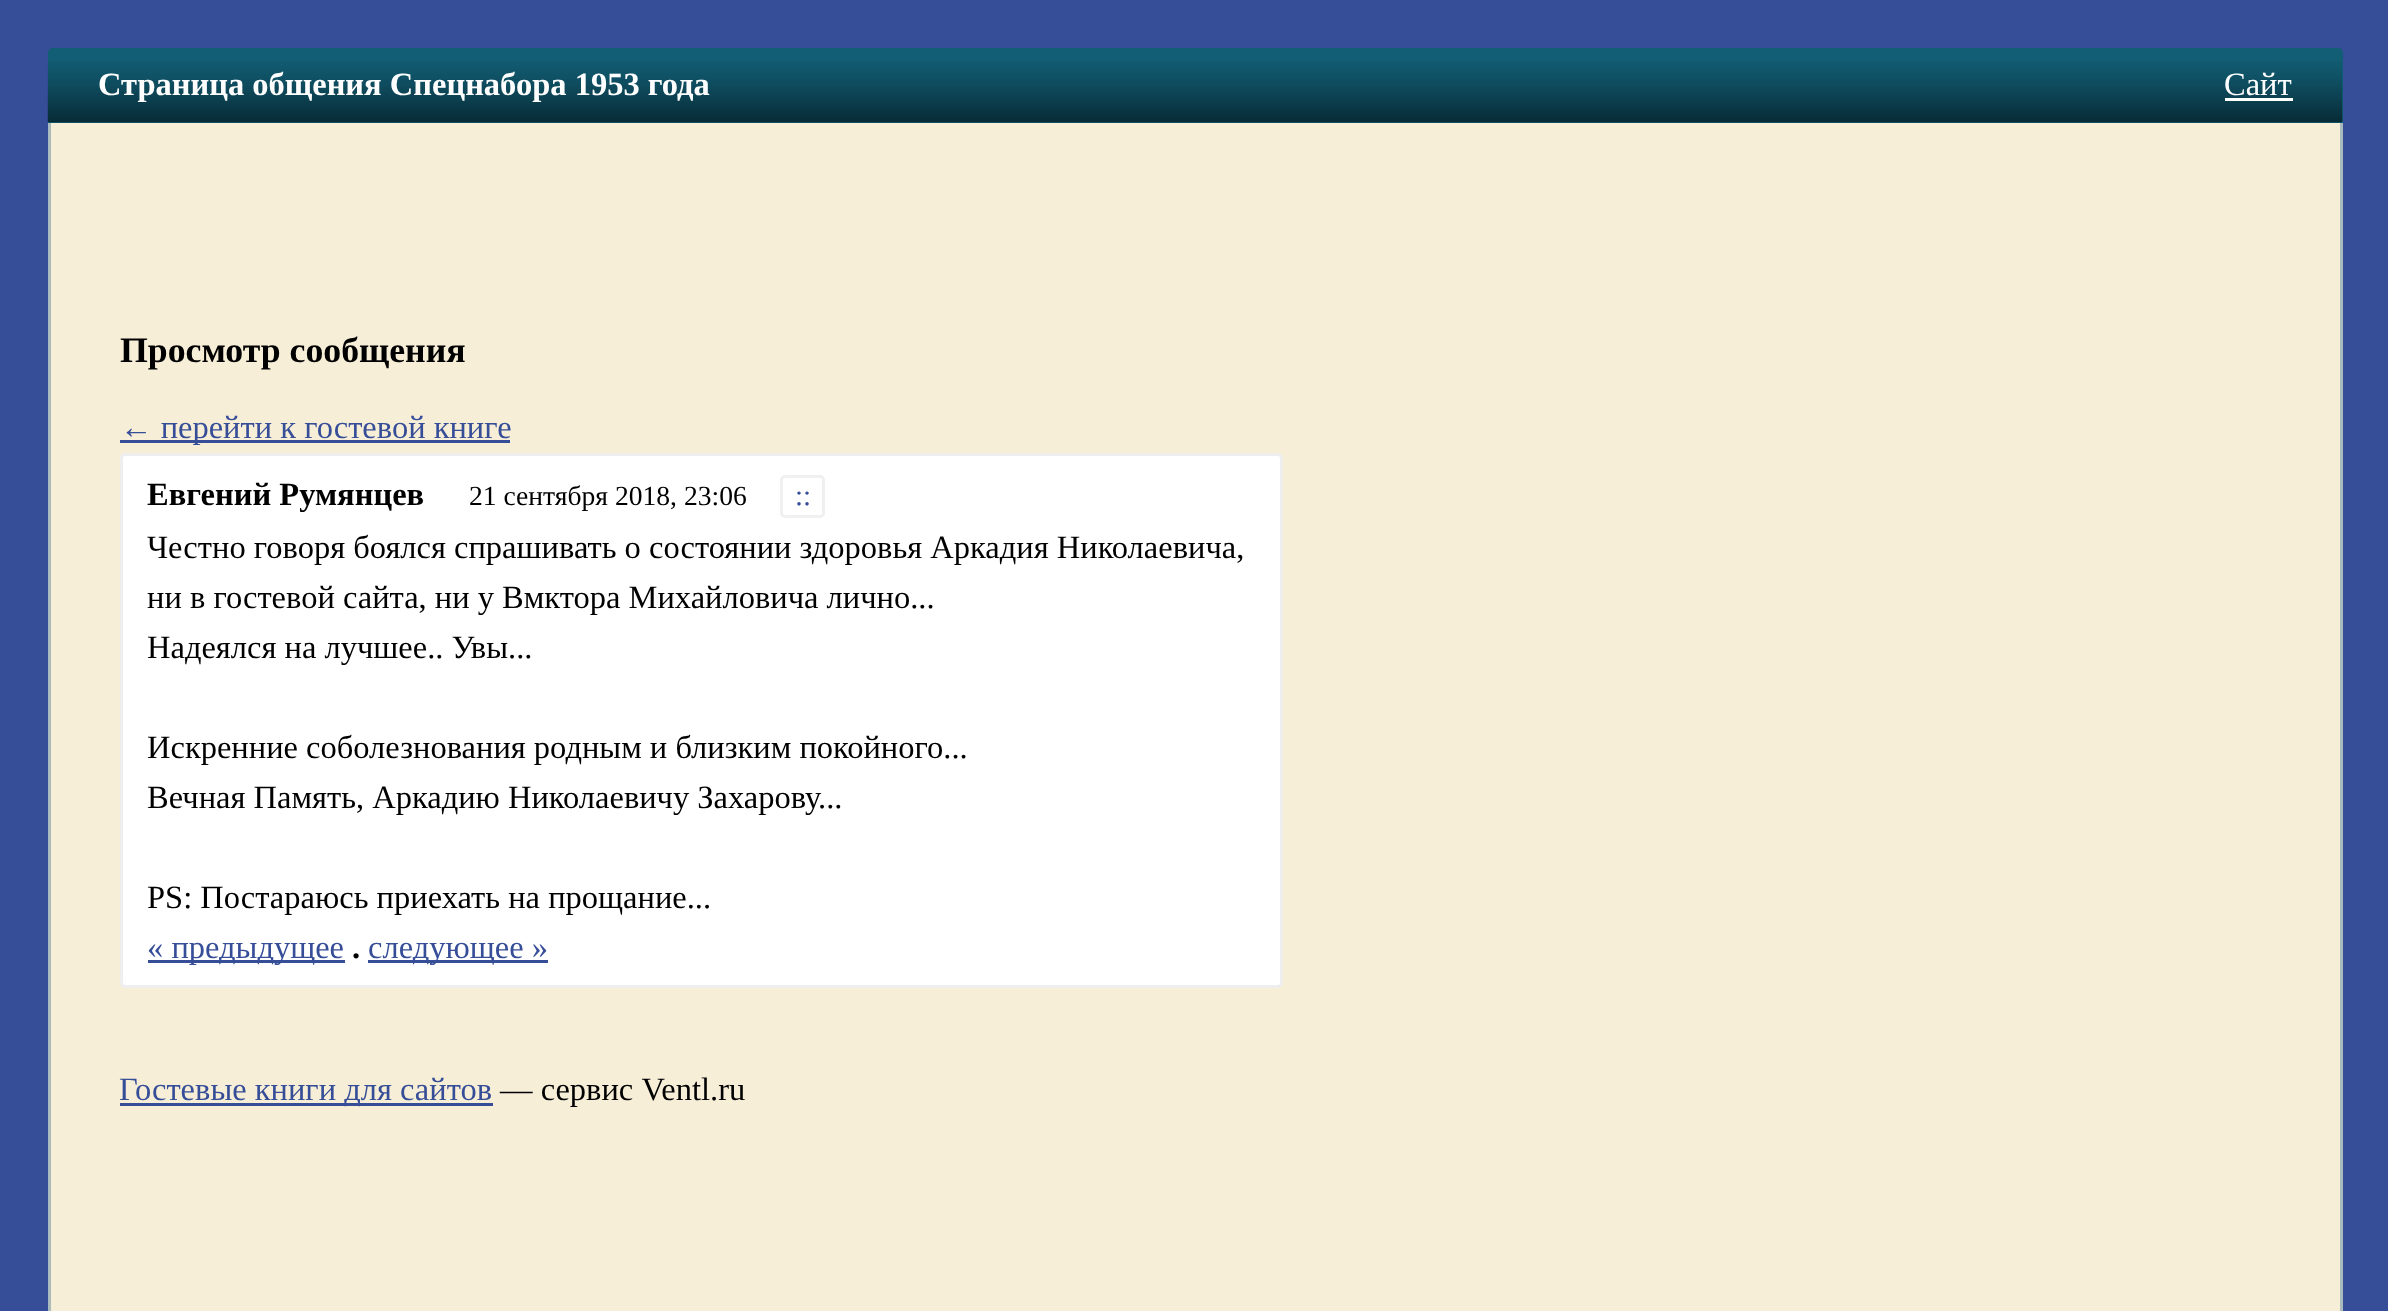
<!DOCTYPE html>
<meta charset="utf-8">
<style>body { margin: 0 } canvas { display: block }</style>
<canvas id="canvas" width="2388" height="1311"></canvas>
<script type="module">
  const canvas = document.getElementById("canvas");
  const g = canvas.getContext("2d");
  g.miterLimit = 4;
  g.fontKerning = "normal";
  function drawText(s, x, y, [font, color]) {
    g.font = font;
    g.fillStyle = color;
    g.fillText(s, x, y);
  }
  function fillBox(x, y, w, h, color) {
    g.fillStyle = color;
    g.fillRect(x, y, w, h);
  }
  async function drawPicture(src, x, y, w, h) {
    const img = new Image();
    img.src = src;
    await img.decode();
    g.drawImage(img, x, y, w, h);
  }

  const s1 = ["bold 32.5px Liberation Serif", "#FFFFFF"];
  const s2 = ["32.5px Liberation Serif", "#FFFFFF"];
  const s3 = ["bold 35.75px Liberation Serif", "#000000"];
  const s4 = ["32.5px Liberation Serif", "#364D98"];
  const s5 = ["bold 32.5px Liberation Serif", "#000000"];
  const s6 = ["27.6px Liberation Serif", "#000000"];
  const s7 = ["29px Liberation Serif", "#364D98"];
  const s8 = ["32.5px Liberation Serif", "#000000"];

  fillBox(0, 0, 2388, 1311, "#364D98");
  g.fillStyle = "#125E75";
  g.beginPath();
  g.roundRect(48, 48, 2295, 75, [5, 5, 0, 0]);
  g.fill();
  await drawPicture("pic1.png", 47, 61, 2296, 62);
  drawText("Страница общения Спецнабора 1953 года", 98, 95, s1);
  drawText("Сайт", 2224, 95, s2);
  fillBox(2225, 98, 68, 3, "#FFFFFF");
  fillBox(51, 123, 2289, 1188, "#F7EED8");
  fillBox(2340, 123, 3, 1188, "#A9BBBC");
  fillBox(48, 123, 3, 1188, "#A9BBBC");
  drawText("Просмотр сообщения", 120, 362, s3);
  fillBox(120, 440, 390, 3, "#364D98");
  drawText("← перейти к гостевой книге", 120, 438, s4);
  g.fillStyle = "#FFFFFF";
  g.beginPath();
  g.roundRect(121.5, 454.5, 1160, 532, 3.5);
  g.fill();
  g.strokeStyle = "#EEEEEE";
  g.lineWidth = 3;
  g.stroke();
  drawText("Евгений Румянцев", 147, 505, s5);
  drawText("21 сентября 2018, 23:06", 469, 505, s6);
  g.beginPath();
  g.roundRect(781.5, 476.5, 42, 40, 3.5);
  g.strokeStyle = "#F0F0F0";
  g.stroke();
  drawText("::", 795, 505, s7);
  drawText("Честно говоря боялся спрашивать о состоянии здоровья Аркадия Николаевича,", 147, 558, s8);
  drawText("ни в гостевой сайта, ни у Вмктора Михайловича лично...", 147, 608, s8);
  drawText("Надеялся на лучшее.. Увы...", 147, 658, s8);
  drawText("Искренние соболезнования родным и близким покойного...", 147, 758, s8);
  drawText("Вечная Память, Аркадию Николаевичу Захарову...", 147, 808, s8);
  drawText("PS: Постараюсь приехать на прощание...", 147, 908, s8);
  fillBox(148, 960, 197, 3, "#364D98");
  drawText("« предыдущее", 147, 958, s4);
  drawText(".", 352, 958, s5);
  fillBox(368, 960, 180, 3, "#364D98");
  drawText("следующее »", 368, 958, s4);
  fillBox(120, 1103, 373, 3, "#364D98");
  drawText("Гостевые книги для сайтов", 119, 1100, s4);
  drawText("— сервис Ventl.ru", 500, 1100, s8);
</script>
